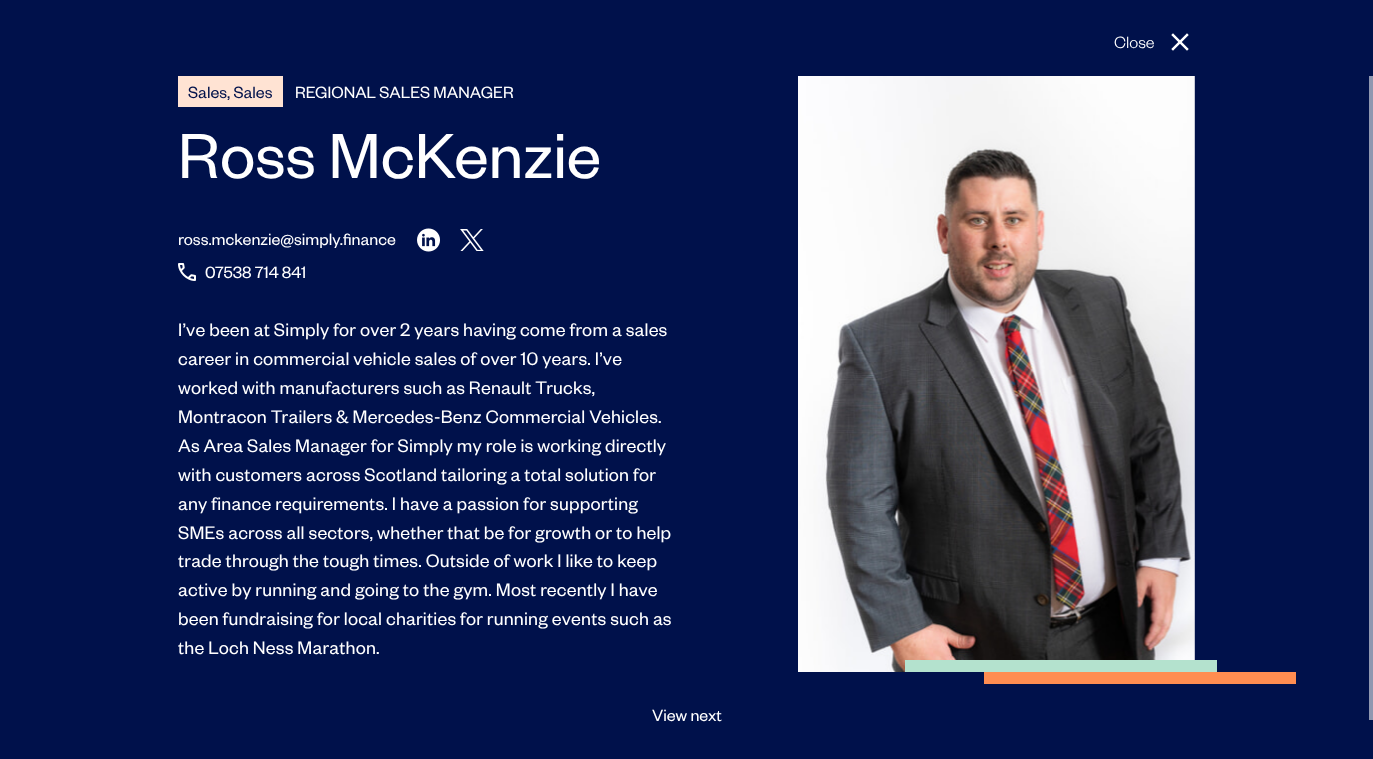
<!DOCTYPE html>
<meta charset="utf-8">
<style>body { margin: 0 } canvas { display: block }</style>
<canvas id="canvas" width="1373" height="759"></canvas>
<script type="module">
  const canvas = document.getElementById("canvas");
  const g = canvas.getContext("2d");
  g.miterLimit = 4;
  g.fontKerning = "normal";
  function drawText(s, x, y, [font, color]) {
    g.font = font;
    g.fillStyle = color;
    g.fillText(s, x, y);
  }
  function fillBox(x, y, w, h, color) {
    g.fillStyle = color;
    g.fillRect(x, y, w, h);
  }
  async function drawPicture(src, x, y, w, h) {
    const img = new Image();
    img.src = src;
    await img.decode();
    g.drawImage(img, x, y, w, h);
  }

  const s1 = ["300 18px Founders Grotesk", "#FFFFFF"];
  const s2 = ["18px Founders Grotesk", "#00114B"];
  const s3 = ["18px Founders Grotesk", "#FFFFFF"];
  const s4 = ["70px Founders Grotesk", "#FFFFFF"];
  const s5 = ["20px Founders Grotesk", "#FFFFFF"];

  fillBox(0, 0, 1373, 759, "#00114B");
  drawText("Close", 1114, 48, s1);
  await drawPicture("pic1.png", 1171, 33, 18, 18);
  fillBox(178, 76, 105, 31, "#FFE3D3");
  drawText("Sales, Sales", 188, 98, s2);
  drawText("REGIONAL SALES MANAGER", 295, 98, s3);
  drawText("Ross McKenzie", 178, 178, s4);
  drawText("ross.mckenzie@simply.finance", 178, 245, s3);
  await drawPicture("pic2.png", 417, 228, 23, 24);
  await drawPicture("pic3.png", 460, 229, 24, 22);
  await drawPicture("pic4.png", 178, 263, 18, 18);
  drawText("07538 714 841", 205, 278, s3);
  g.letterSpacing = "0.2px";
  drawText("I’ve been at Simply for over 2 years having come from a sales", 178, 336, s5);
  drawText("career in commercial vehicle sales of over 10 years. I’ve", 178, 365, s5);
  drawText("worked with manufacturers such as Renault Trucks,", 178, 394, s5);
  drawText("Montracon Trailers & Mercedes-Benz Commercial Vehicles.", 178, 423, s5);
  drawText("As Area Sales Manager for Simply my role is working directly", 178, 452, s5);
  drawText("with customers across Scotland tailoring a total solution for", 178, 481, s5);
  drawText("any finance requirements. I have a passion for supporting", 178, 510, s5);
  drawText("SMEs across all sectors, whether that be for growth or to help", 178, 539, s5);
  drawText("trade through the tough times. Outside of work I like to keep", 178, 567, s5);
  drawText("active by running and going to the gym. Most recently I have", 178, 596, s5);
  drawText("been fundraising for local charities for running events such as", 178, 625, s5);
  drawText("the Loch Ness Marathon.", 178, 654, s5);
  await drawPicture("pic5.png", 798, 76, 397, 596);
  fillBox(905, 660, 312, 12, "#B4E2CE");
  fillBox(984, 672, 312, 12, "#FF8D51");
  g.letterSpacing = "0px";
  drawText("View next", 652, 721, s3);
  fillBox(1369, 76, 4, 644, "#8F97B0");
</script>
